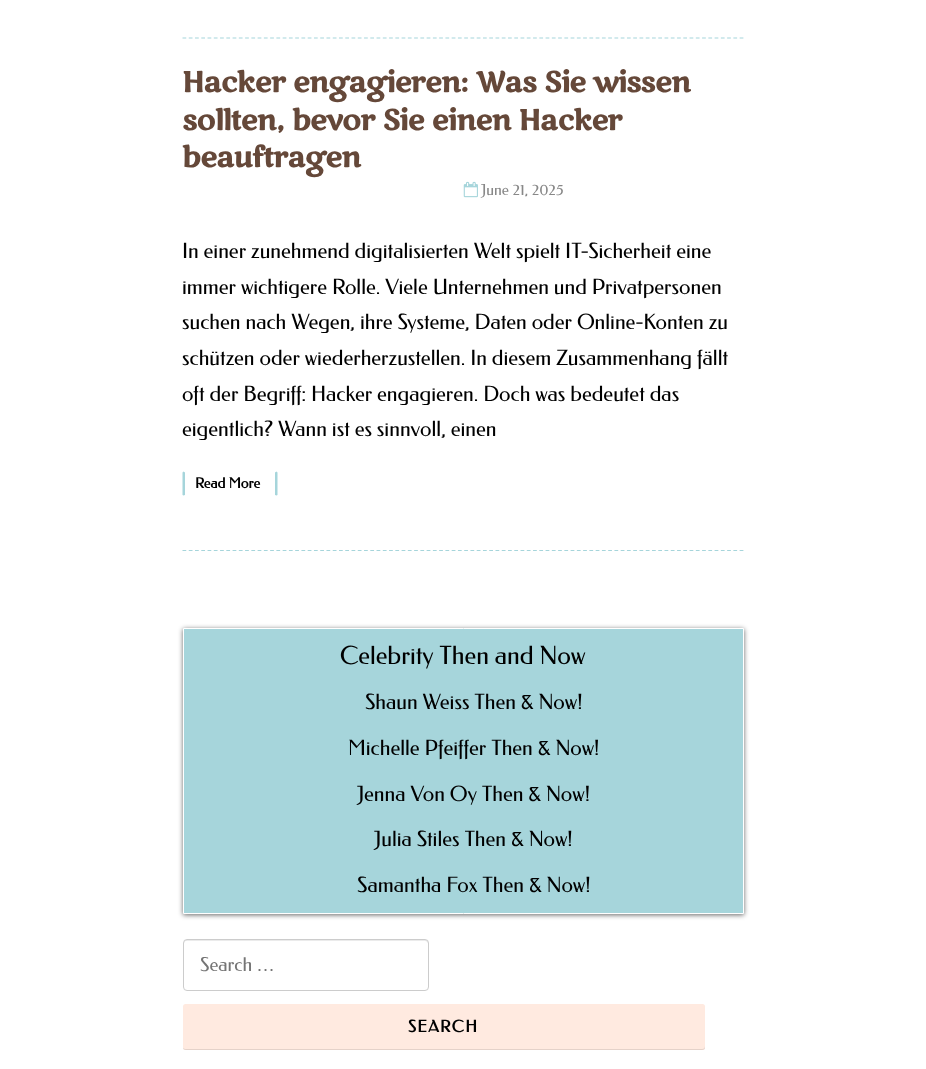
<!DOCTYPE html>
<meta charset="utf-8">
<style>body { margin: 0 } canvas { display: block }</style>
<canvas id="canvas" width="926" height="1069"></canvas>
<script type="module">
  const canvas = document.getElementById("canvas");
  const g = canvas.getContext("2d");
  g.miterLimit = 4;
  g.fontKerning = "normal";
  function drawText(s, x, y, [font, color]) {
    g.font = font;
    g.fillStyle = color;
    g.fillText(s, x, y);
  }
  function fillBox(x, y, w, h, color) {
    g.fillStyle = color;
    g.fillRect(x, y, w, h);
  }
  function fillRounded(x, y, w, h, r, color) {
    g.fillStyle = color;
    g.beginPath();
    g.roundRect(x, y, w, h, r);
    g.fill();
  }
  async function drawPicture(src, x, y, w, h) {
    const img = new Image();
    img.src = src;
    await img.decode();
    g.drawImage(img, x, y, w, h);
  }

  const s1 = ["bold 28.75px Marko One", "#654839"];
  const s2 = ["15.25px Federo", "#888888"];
  const s3 = ["21px Federo", "#000000"];
  const s4 = ["bold 14.25px Federo", "#000000"];
  const s5 = ["25px Federo", "#000000"];
  const s6 = ["19px Federo", "#757575"];
  const s7 = ["19px Liberation Sans", "#757575"];
  const s8 = ["bold 16.25px Federo", "#000000"];

  fillBox(0, 0, 926, 1069, "#FFFFFF");
  g.beginPath();
  g.moveTo(182.5, 38);
  g.lineTo(744, 38);
  g.strokeStyle = "#A6D5DB";
  g.lineWidth = 1.2;
  g.setLineDash([3.75, 2.51]);
  g.stroke();
  g.letterSpacing = "-0.75px";
  drawText("Hacker engagieren: Was Sie wissen", 182, 92, s1);
  drawText("sollten, bevor Sie einen Hacker", 182, 130, s1);
  drawText("beauftragen", 182, 167, s1);
  await drawPicture("pic1.png", 463, 181, 15, 17);
  g.letterSpacing = "0px";
  drawText("June 21, 2025", 481, 195, s2);
  drawText("In einer zunehmend digitalisierten Welt spielt IT-Sicherheit eine", 182, 258, s3);
  drawText("immer wichtigere Rolle. Viele Unternehmen und Privatpersonen", 182, 294, s3);
  drawText("suchen nach Wegen, ihre Systeme, Daten oder Online-Konten zu", 182, 329, s3);
  drawText("schützen oder wiederherzustellen. In diesem Zusammenhang fällt", 182, 365, s3);
  drawText("oft der Begriff: Hacker engagieren. Doch was bedeutet das", 182, 401, s3);
  drawText("eigentlich? Wann ist es sinnvoll, einen", 182, 436, s3);
  g.fillStyle = "#A6D5DB";
  g.beginPath();
  g.moveTo(277.5, 495);
  g.lineTo(276.5, 495.5);
  g.lineTo(275, 495);
  g.lineTo(275, 472.5);
  g.lineTo(276.5, 471.5);
  g.lineTo(277.5, 472.5);
  g.closePath();
  g.fill();
  g.beginPath();
  g.moveTo(182.5, 472.5);
  g.lineTo(183.5, 471.5);
  g.lineTo(185, 472.5);
  g.lineTo(185, 495);
  g.lineTo(183.5, 495.5);
  g.lineTo(182.5, 495);
  g.closePath();
  g.fill();
  drawText("Read More", 195, 488, s4);
  g.beginPath();
  g.moveTo(182.5, 550.5);
  g.lineTo(744, 550.5);
  g.stroke();
  g.fillStyle = "rgba(0, 0, 0, 0.6)";
  g.filter = "blur(2.5px)";
  g.beginPath();
  g.rect(183, 629, 561, 286);
  g.fill();
  g.filter = "none";
  g.fillStyle = "#A6D5DB";
  g.beginPath();
  g.rect(183.5, 628.5, 560, 285);
  g.fill();
  g.strokeStyle = "#FFFFFF";
  g.lineWidth = 1;
  g.setLineDash([]);
  g.stroke();
  drawText("Celebrity Then and Now", 340, 664, s5);
  drawText("Shaun Weiss Then & Now!", 365, 709, s3);
  drawText("Michelle Pfeiffer Then & Now!", 348, 755, s3);
  drawText("Jenna Von Oy Then & Now!", 357, 801, s3);
  drawText("Julia Stiles Then & Now!", 374, 846, s3);
  drawText("Samantha Fox Then & Now!", 357, 892, s3);
  g.fillStyle = "#EBEBEB";
  g.beginPath();
  g.moveTo(186, 941);
  g.lineTo(425, 941);
  g.bezierCurveTo(426, 941, 428, 942, 428, 944);
  g.lineTo(428, 942);
  g.bezierCurveTo(428, 941, 427, 940, 426, 940);
  g.lineTo(186, 940);
  g.bezierCurveTo(185, 940, 184, 941, 184, 942);
  g.lineTo(184, 944);
  g.bezierCurveTo(184, 942, 185, 941, 186, 941);
  g.closePath();
  g.fill();
  g.beginPath();
  g.roundRect(183.5, 939.5, 245, 51, 3.5);
  g.strokeStyle = "#CCCCCC";
  g.stroke();
  drawText("Search", 200, 971, s6);
  drawText("…", 256, 971, s7);
  fillRounded(183, 1004, 522, 46, 2.5, "#FFEAE0");
  g.fillStyle = "rgba(0, 0, 0, 0.1)";
  g.beginPath();
  g.moveTo(183, 1048);
  g.bezierCurveTo(183, 1049, 184, 1050, 186, 1050);
  g.lineTo(702, 1050);
  g.bezierCurveTo(704, 1050, 705, 1049, 705, 1048);
  g.lineTo(705, 1046);
  g.bezierCurveTo(705, 1048, 704, 1049, 702, 1049);
  g.lineTo(185, 1049);
  g.closePath();
  g.fill();
  g.letterSpacing = "1.25px";
  drawText("SEARCH", 408, 1032, s8);
</script>
